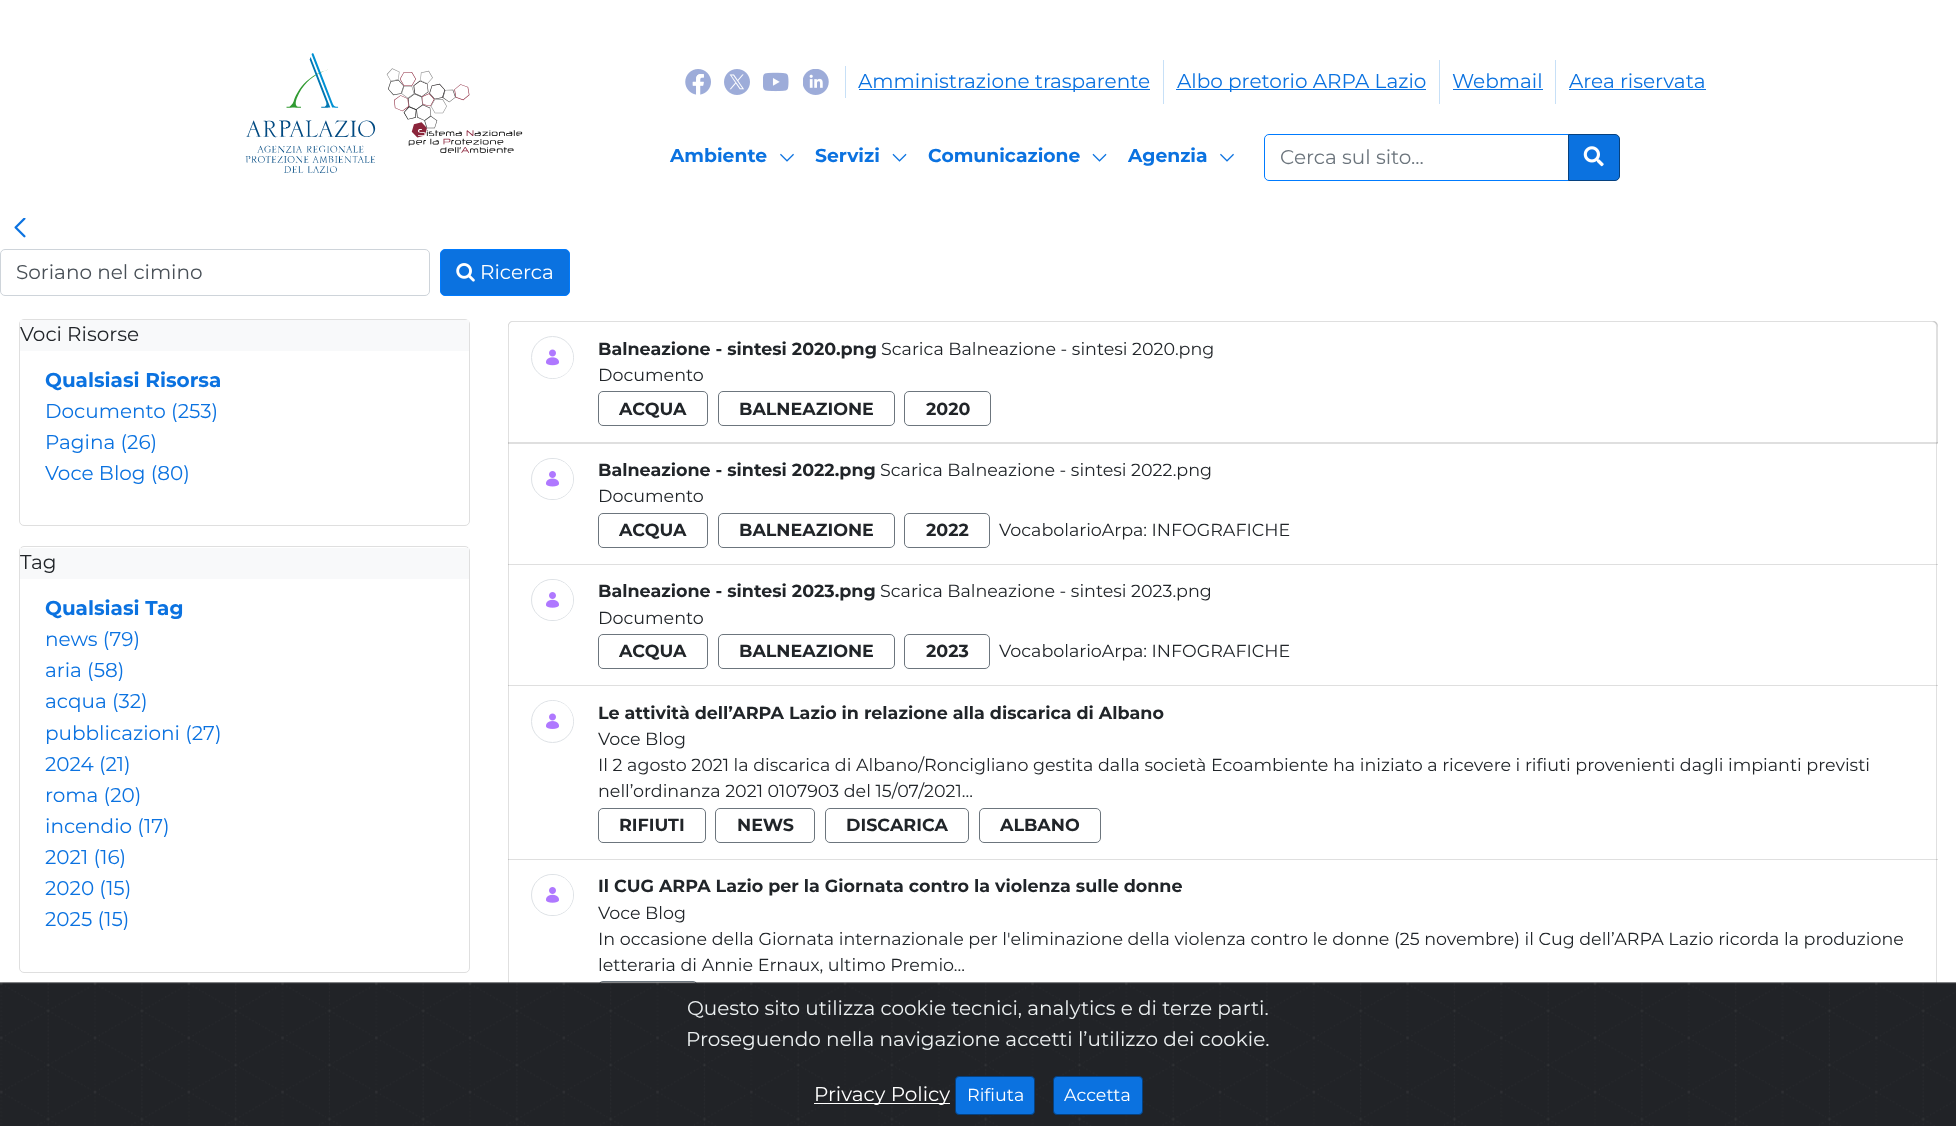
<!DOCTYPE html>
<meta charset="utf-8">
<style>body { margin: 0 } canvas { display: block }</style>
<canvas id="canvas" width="1956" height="1126"></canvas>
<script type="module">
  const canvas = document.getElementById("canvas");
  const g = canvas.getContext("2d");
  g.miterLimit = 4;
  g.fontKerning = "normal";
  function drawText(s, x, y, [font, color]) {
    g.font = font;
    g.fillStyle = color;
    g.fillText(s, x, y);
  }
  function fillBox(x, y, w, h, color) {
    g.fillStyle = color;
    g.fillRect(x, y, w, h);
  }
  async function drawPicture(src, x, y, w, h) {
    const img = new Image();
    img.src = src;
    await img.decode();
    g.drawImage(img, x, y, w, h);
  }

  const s1 = ["20px Montserrat", "#0B72E0"];
  const s2 = ["bold 18.75px Montserrat", "#0B72E0"];
  const s3 = ["20px Montserrat", "#6C757D"];
  const s4 = ["20px Montserrat", "#495057"];
  const s5 = ["20px Montserrat", "#FFFFFF"];
  const s6 = ["20px Montserrat", "#212529"];
  const s7 = ["bold 20px Montserrat", "#0B72E0"];
  const s8 = ["bold 17.5px Montserrat", "#212529"];
  const s9 = ["17.5px Montserrat", "#212529"];
  const s10 = ["20px Montserrat", "#ECF0F1"];
  const s11 = ["17.5px Montserrat", "#FFFFFF"];

  fillBox(0, 0, 1956, 1126, "#FFFFFF");
  await drawPicture("pic1.png", 245, 53, 131, 120);
  await drawPicture("pic2.png", 386, 68, 137, 85);
  fillBox(845, 66, 1, 32, "#C7E0F7");
  await drawPicture("pic3.png", 685, 69, 26, 26);
  await drawPicture("pic4.png", 724, 69, 26, 26);
  await drawPicture("pic5.png", 763, 72, 26, 20);
  await drawPicture("pic6.png", 803, 69, 26, 26);
  fillBox(1163, 60, 1, 44, "#C7E0F7");
  fillBox(859, 89, 291, 1, "#0B72E0");
  drawText("Amministrazione trasparente", 858, 88, s1);
  fillBox(1439, 60, 1, 44, "#C7E0F7");
  fillBox(1176, 89, 250, 1, "#0B72E0");
  drawText("Albo pretorio ARPA Lazio", 1177, 88, s1);
  fillBox(1555, 60, 1, 44, "#C7E0F7");
  drawText("Webmail", 1452, 88, s1);
  fillBox(1453, 89, 90, 1, "#0B72E0");
  drawText("Area riservata", 1569, 88, s1);
  fillBox(1569, 89, 137, 1, "#0B72E0");
  drawText("Ambiente", 670, 162, s2);
  await drawPicture("pic7.png", 780, 153, 14, 9);
  drawText("Servizi", 815, 162, s2);
  await drawPicture("pic8.png", 892, 153, 15, 9);
  drawText("Comunicazione", 928, 162, s2);
  await drawPicture("pic8.png", 1092, 153, 15, 9);
  drawText("Agenzia", 1128, 162, s2);
  await drawPicture("pic7.png", 1220, 153, 14, 9);
  g.beginPath();
  g.roundRect(1264.5, 134.5, 304, 46, [4.5, 0, 0, 4.5]);
  g.strokeStyle = "#007BFF";
  g.stroke();
  drawText("Cerca sul sito...", 1280, 164, s3);
  g.fillStyle = "#0B72E0";
  g.beginPath();
  g.roundRect(1568.5, 134.5, 51, 46, [0, 4.5, 4.5, 0]);
  g.fill();
  g.strokeStyle = "#06417F";
  g.stroke();
  await drawPicture("pic9.png", 1583, 146, 21, 21);
  await drawPicture("pic10.png", 14, 218, 12, 20);
  g.beginPath();
  g.roundRect(0.5, 249.5, 429, 46, 4.5);
  g.strokeStyle = "#CED4DA";
  g.stroke();
  drawText("Soriano nel cimino", 16, 279, s4);
  g.fillStyle = "#0B72E0";
  g.beginPath();
  g.roundRect(440.5, 249.5, 129, 46, 4.5);
  g.fill();
  g.strokeStyle = "#007BFF";
  g.stroke();
  await drawPicture("pic11.png", 456, 263, 19, 19);
  drawText("Ricerca", 480, 279, s5);
  g.beginPath();
  g.roundRect(19.5, 319.5, 450, 206, 4.5);
  g.strokeStyle = "#DFDFDF";
  g.stroke();
  fillBox(20, 320, 449, 31, "#F8F9FA");
  drawText("Voci Risorse", 20, 341, s6);
  drawText("Qualsiasi Risorsa", 45, 387, s7);
  drawText("Documento (253)", 45, 418, s1);
  drawText("Pagina (26)", 45, 449, s1);
  drawText("Voce Blog (80)", 45, 480, s1);
  g.beginPath();
  g.roundRect(19.5, 546.5, 450, 426, 4.5);
  g.stroke();
  fillBox(20, 548, 449, 31, "#F8F9FA");
  drawText("Tag", 20, 569, s6);
  drawText("Qualsiasi Tag", 45, 615, s7);
  drawText("news (79)", 45, 646, s1);
  drawText("aria (58)", 45, 677, s1);
  drawText("acqua (32)", 45, 708, s1);
  drawText("pubblicazioni (27)", 45, 740, s1);
  drawText("2024 (21)", 45, 771, s1);
  drawText("roma (20)", 45, 802, s1);
  drawText("incendio (17)", 45, 833, s1);
  drawText("2021 (16)", 45, 864, s1);
  drawText("2020 (15)", 45, 895, s1);
  drawText("2025 (15)", 45, 926, s1);
  fillBox(508, 442, 1430, 1, "#DFDFDF");
  g.beginPath();
  g.moveTo(512, 322);
  g.lineTo(1932, 322);
  g.bezierCurveTo(1935, 322, 1938, 325, 1938, 328);
  g.bezierCurveTo(1938, 325, 1937, 321, 1933, 321);
  g.lineTo(513, 321);
  g.bezierCurveTo(509, 321, 508, 325, 508, 328);
  g.bezierCurveTo(508, 325, 510, 322, 512, 322);
  g.closePath();
  g.fill();
  g.fillStyle = "rgba(0, 0, 0, 0.12)";
  g.beginPath();
  g.moveTo(1936, 444);
  g.lineTo(1938, 444);
  g.lineTo(1938, 326);
  g.bezierCurveTo(1938, 323, 1936, 321, 1933, 321);
  g.lineTo(1931, 321);
  g.bezierCurveTo(1934, 321, 1936, 323, 1936, 326);
  g.closePath();
  g.fill();
  g.beginPath();
  g.moveTo(513, 321);
  g.bezierCurveTo(510, 321, 508, 323, 508, 326);
  g.lineTo(508, 444);
  g.lineTo(509, 444);
  g.lineTo(509, 326);
  g.bezierCurveTo(509, 323, 511, 321, 514, 321);
  g.closePath();
  g.fill();
  g.beginPath();
  g.arc(552.5, 357.5, 21, 0, Math.PI * 2);
  g.strokeStyle = "#DEE2E6";
  g.stroke();
  g.fillStyle = "#FFFFFF";
  g.beginPath();
  g.arc(553, 358, 20, 0, Math.PI * 2);
  g.fill();
  await drawPicture("pic12.png", 546, 349, 13, 17);
  drawText("Balneazione - sintesi 2020.png", 598, 355, s8);
  drawText("Scarica Balneazione - sintesi 2020.png", 881, 355, s9);
  drawText("Documento", 598, 381, s9);
  g.beginPath();
  g.roundRect(598.5, 391.5, 109, 34, 4.5);
  g.strokeStyle = "#6C757D";
  g.stroke();
  drawText("ACQUA", 619, 415, s8);
  g.beginPath();
  g.roundRect(718.5, 391.5, 176, 34, 4.5);
  g.stroke();
  drawText("BALNEAZIONE", 739, 415, s8);
  g.beginPath();
  g.roundRect(904.5, 391.5, 86, 34, 4.5);
  g.stroke();
  drawText("2020", 926, 415, s8);
  fillBox(508, 443, 1430, 1, "#DFDFDF");
  fillBox(1936, 443, 1, 122, "rgba(0, 0, 0, 0.12)");
  fillBox(508, 443, 1, 122, "rgba(0, 0, 0, 0.12)");
  g.beginPath();
  g.roundRect(531.5, 458.5, 42, 41, 20.5);
  g.strokeStyle = "#DEE2E6";
  g.stroke();
  g.fillStyle = "#FFFFFF";
  g.beginPath();
  g.arc(553, 479, 20, 0, Math.PI * 2);
  g.fill();
  await drawPicture("pic13.png", 546, 471, 13, 16);
  drawText("Balneazione - sintesi 2022.png", 598, 476, s8);
  drawText("Scarica Balneazione - sintesi 2022.png", 880, 476, s9);
  drawText("Documento", 598, 502, s9);
  g.beginPath();
  g.roundRect(598.5, 513.5, 109, 34, 4.5);
  g.strokeStyle = "#6C757D";
  g.stroke();
  drawText("ACQUA", 619, 536, s8);
  g.beginPath();
  g.roundRect(718.5, 513.5, 176, 34, 4.5);
  g.stroke();
  drawText("BALNEAZIONE", 739, 536, s8);
  g.beginPath();
  g.roundRect(904.5, 513.5, 85, 34, 4.5);
  g.stroke();
  drawText("2022", 926, 536, s8);
  drawText("VocabolarioArpa: INFOGRAFICHE", 999, 536, s9);
  fillBox(508, 564, 1430, 1, "#DFDFDF");
  fillBox(1936, 564, 1, 122, "rgba(0, 0, 0, 0.12)");
  fillBox(508, 564, 1, 122, "rgba(0, 0, 0, 0.12)");
  g.beginPath();
  g.roundRect(531.5, 579.5, 42, 41, 20.5);
  g.strokeStyle = "#DEE2E6";
  g.stroke();
  g.fillStyle = "#FFFFFF";
  g.beginPath();
  g.arc(553, 600, 20, 0, Math.PI * 2);
  g.fill();
  await drawPicture("pic14.png", 546, 592, 13, 16);
  drawText("Balneazione - sintesi 2023.png", 598, 597, s8);
  drawText("Scarica Balneazione - sintesi 2023.png", 880, 597, s9);
  drawText("Documento", 598, 624, s9);
  g.beginPath();
  g.roundRect(598.5, 634.5, 109, 34, 4.5);
  g.strokeStyle = "#6C757D";
  g.stroke();
  drawText("ACQUA", 619, 657, s8);
  g.beginPath();
  g.roundRect(718.5, 634.5, 176, 34, 4.5);
  g.stroke();
  drawText("BALNEAZIONE", 739, 657, s8);
  g.beginPath();
  g.roundRect(904.5, 634.5, 85, 34, 4.5);
  g.stroke();
  drawText("2023", 926, 657, s8);
  drawText("VocabolarioArpa: INFOGRAFICHE", 999, 657, s9);
  fillBox(508, 685, 1430, 1, "#DFDFDF");
  fillBox(1936, 685, 1, 175, "rgba(0, 0, 0, 0.12)");
  fillBox(508, 685, 1, 175, "rgba(0, 0, 0, 0.12)");
  g.beginPath();
  g.arc(552.5, 721.5, 21, 0, Math.PI * 2);
  g.strokeStyle = "#DEE2E6";
  g.stroke();
  g.fillStyle = "#FFFFFF";
  g.beginPath();
  g.arc(553, 721, 20, 0, Math.PI * 2);
  g.fill();
  await drawPicture("pic15.png", 546, 713, 13, 16);
  drawText("Le attività dell’ARPA Lazio in relazione alla discarica di Albano", 598, 719, s8);
  drawText("Voce Blog", 598, 745, s9);
  drawText("Il 2 agosto 2021 la discarica di Albano/Roncigliano gestita dalla società Ecoambiente ha iniziato a ricevere i rifiuti provenienti dagli impianti previsti", 598, 771, s9);
  drawText("nell’ordinanza 2021 0107903 del 15/07/2021...", 598, 797, s9);
  g.beginPath();
  g.roundRect(598.5, 808.5, 107, 34, 4.5);
  g.strokeStyle = "#6C757D";
  g.stroke();
  drawText("RIFIUTI", 619, 831, s8);
  g.beginPath();
  g.roundRect(715.5, 808.5, 99, 34, 4.5);
  g.stroke();
  drawText("NEWS", 737, 831, s8);
  g.beginPath();
  g.roundRect(825.5, 808.5, 143, 34, 4.5);
  g.stroke();
  drawText("DISCARICA", 846, 831, s8);
  g.beginPath();
  g.roundRect(979.5, 808.5, 121, 34, 4.5);
  g.stroke();
  drawText("ALBANO", 1000, 831, s8);
  fillBox(508, 859, 1430, 1, "#DFDFDF");
  fillBox(1936, 859, 1, 125, "rgba(0, 0, 0, 0.12)");
  fillBox(508, 859, 1, 125, "rgba(0, 0, 0, 0.12)");
  g.beginPath();
  g.roundRect(531.5, 874.5, 42, 41, 20.5);
  g.strokeStyle = "#DEE2E6";
  g.stroke();
  g.fillStyle = "#FFFFFF";
  g.beginPath();
  g.arc(553, 895, 20, 0, Math.PI * 2);
  g.fill();
  await drawPicture("pic14.png", 546, 887, 13, 16);
  drawText("Il CUG ARPA Lazio per la Giornata contro la violenza sulle donne", 598, 892, s8);
  drawText("Voce Blog", 598, 919, s9);
  drawText("In occasione della Giornata internazionale per l'eliminazione della violenza contro le donne (25 novembre) il Cug dell’ARPA Lazio ricorda la produzione", 598, 945, s9);
  drawText("letteraria di Annie Ernaux, ultimo Premio...", 598, 971, s9);
  g.beginPath();
  g.roundRect(598.5, 981.5, 99, 34, 4.5);
  g.strokeStyle = "#6C757D";
  g.stroke();
  await drawPicture("pic16.png", 0, 982, 1956, 144);
  drawText("Questo sito utilizza cookie tecnici, analytics e di terze parti.", 687, 1015, s10);
  drawText("Proseguendo nella navigazione accetti l’utilizzo dei cookie.", 686, 1046, s10);
  fillBox(814, 1103, 136, 1, "#FFFFFF");
  drawText("Privacy Policy", 814, 1101, s5);
  g.fillStyle = "#0B72E0";
  g.beginPath();
  g.roundRect(955.5, 1076.5, 79, 38, 3.5);
  g.fill();
  g.strokeStyle = "#06417F";
  g.stroke();
  drawText("Rifiuta", 967, 1101, s11);
  g.fillStyle = "#0B72E0";
  g.beginPath();
  g.roundRect(1053.5, 1076.5, 89, 38, 3.5);
  g.fill();
  g.stroke();
  drawText("Accetta", 1064, 1101, s11);
</script>
